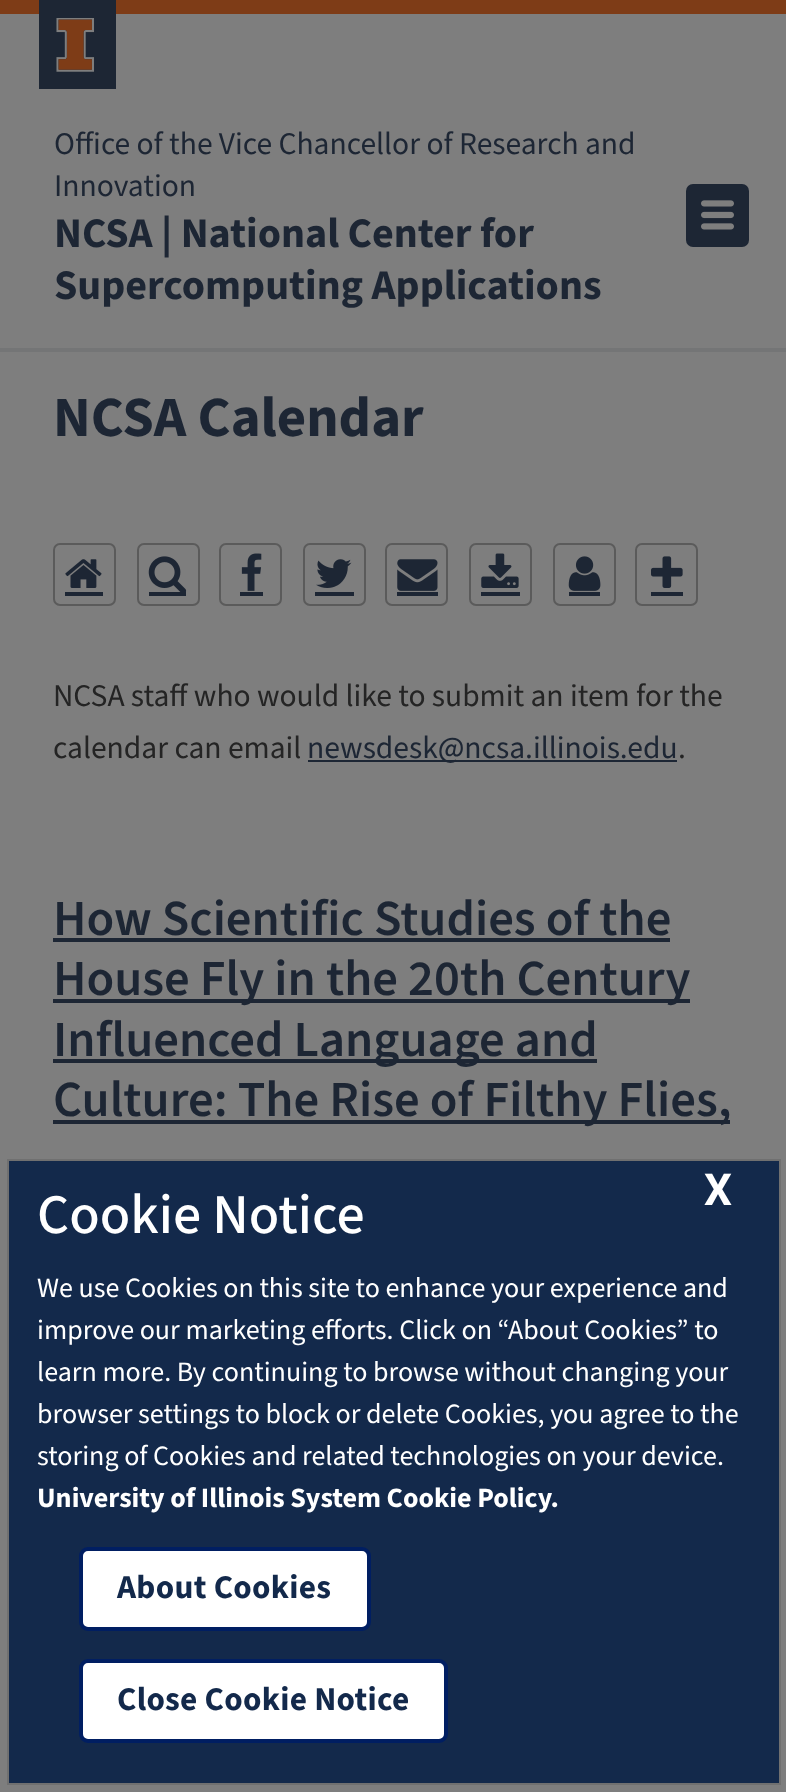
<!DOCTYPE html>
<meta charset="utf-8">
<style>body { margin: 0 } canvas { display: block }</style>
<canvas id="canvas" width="786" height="1792"></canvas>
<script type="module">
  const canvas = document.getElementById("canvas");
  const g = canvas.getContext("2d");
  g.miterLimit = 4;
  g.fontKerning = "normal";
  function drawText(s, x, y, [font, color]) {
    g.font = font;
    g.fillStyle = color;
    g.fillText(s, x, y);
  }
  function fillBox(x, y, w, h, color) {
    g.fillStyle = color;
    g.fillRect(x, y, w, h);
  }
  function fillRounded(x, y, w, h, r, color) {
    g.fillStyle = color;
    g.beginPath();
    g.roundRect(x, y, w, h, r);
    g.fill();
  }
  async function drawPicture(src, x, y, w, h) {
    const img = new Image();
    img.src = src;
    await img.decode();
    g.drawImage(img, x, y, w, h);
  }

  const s1 = ["31.5px Source Sans Pro", "#1D2634"];
  const s2 = ["bold 42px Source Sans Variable", "#1D2634"];
  const s3 = ["bold 56.75px Source Sans Variable", "#1D2634"];
  const s4 = ["31.5px Source Sans Pro", "#242424"];
  const s5 = ["600 50.5px Source Sans Variable", "#1D2634"];
  const s6 = ["bold 44px Roboto", "#FFFFFF"];
  const s7 = ["500 56px Source Sans Variable", "#FFFFFF"];
  const s8 = ["28px Source Sans Pro", "#FFFFFF"];
  const s9 = ["bold 28px Source Sans Variable", "#FFFFFF"];
  const s10 = ["bold 33.25px Source Sans Variable", "#13294B"];

  fillBox(0, 0, 786, 1792, "#7E7E7E");
  fillBox(0, 0, 786, 14, "#7E3C17");
  fillBox(0, 348, 786, 4, "#747576");
  fillBox(39, 0, 77, 89, "#1D2634");
  await drawPicture("pic1.png", 56, 18, 39, 54);
  drawText("Office of the Vice Chancellor of Research and", 54, 154, s1);
  drawText("Innovation", 54, 196, s1);
  drawText("NCSA | National Center for", 54, 247, s2);
  drawText("Supercomputing Applications", 54, 299, s2);
  fillRounded(686, 184, 63, 63, 7, "#1D2634");
  await drawPicture("pic2.png", 701, 200, 33, 30);
  drawText("NCSA Calendar", 53, 436, s3);
  g.beginPath();
  g.roundRect(54, 544, 61, 61, 6);
  g.strokeStyle = "#5B5B5B";
  g.lineWidth = 2;
  g.stroke();
  await drawPicture("pic3.png", 65, 559, 37, 29);
  fillBox(65, 592, 38, 4, "#1D2634");
  g.beginPath();
  g.roundRect(138, 544, 61, 61, 6);
  g.stroke();
  await drawPicture("pic4.png", 148, 556, 39, 36);
  fillBox(149, 592, 37, 4, "#1D2634");
  g.beginPath();
  g.roundRect(220, 544, 61, 61, 6);
  g.stroke();
  await drawPicture("pic5.png", 241, 553, 21, 38);
  fillBox(240, 592, 23, 4, "#1D2634");
  g.beginPath();
  g.roundRect(304, 544, 61, 61, 6);
  g.stroke();
  await drawPicture("pic6.png", 316, 559, 36, 29);
  fillBox(315, 592, 39, 4, "#1D2634");
  g.beginPath();
  g.roundRect(386, 544, 61, 61, 6);
  g.stroke();
  await drawPicture("pic7.png", 397, 559, 41, 32);
  fillBox(397, 592, 41, 4, "#1D2634");
  g.beginPath();
  g.roundRect(470, 544, 61, 61, 6);
  g.stroke();
  await drawPicture("pic8.png", 481, 553, 38, 35);
  fillBox(481, 592, 39, 4, "#1D2634");
  g.beginPath();
  g.roundRect(554, 544, 61, 61, 6);
  g.stroke();
  await drawPicture("pic9.png", 568, 556, 33, 35);
  fillBox(569, 592, 31, 4, "#1D2634");
  g.beginPath();
  g.roundRect(636, 544, 61, 61, 6);
  g.stroke();
  await drawPicture("pic10.png", 651, 556, 32, 32);
  fillBox(651, 592, 32, 4, "#1D2634");
  drawText("NCSA staff who would like to submit an item for the", 53, 706, s4);
  drawText("calendar can email", 53, 758, s4);
  fillBox(308, 760, 369, 2, "#1D2634");
  drawText("newsdesk@ncsa.illinois.edu", 307, 758, s1);
  drawText(".", 678, 758, s4);
  drawText("How Scientific Studies of the", 53, 935, s5);
  fillBox(53, 938, 617, 4, "#1D2634");
  fillBox(53, 999, 637, 4, "#1D2634");
  drawText("House Fly in the 20th Century", 53, 995, s5);
  fillBox(53, 1059, 544, 4, "#1D2634");
  drawText("Influenced Language and", 53, 1056, s5);
  fillBox(53, 1120, 677, 4, "#1D2634");
  drawText("Culture: The Rise of Filthy Flies,", 53, 1116, s5);
  g.fillStyle = "#13294B";
  g.beginPath();
  g.rect(8, 1160, 772, 624);
  g.fill();
  g.strokeStyle = "#707070";
  g.stroke();
  drawText("X", 704, 1205, s6);
  drawText("Cookie Notice", 37, 1233, s7);
  drawText("We use Cookies on this site to enhance your experience and", 37, 1297, s8);
  drawText("improve our marketing efforts. Click on “About Cookies” to", 37, 1339, s8);
  drawText("learn more. By continuing to browse without changing your", 37, 1381, s8);
  drawText("browser settings to block or delete Cookies, you agree to the", 37, 1423, s8);
  drawText("storing of Cookies and related technologies on your device.", 37, 1465, s8);
  drawText("University of Illinois System Cookie Policy.", 37, 1507, s9);
  g.beginPath();
  g.roundRect(81, 1549, 288, 80, 7);
  g.fill();
  g.strokeStyle = "#001E62";
  g.lineWidth = 4;
  g.stroke();
  g.letterSpacing = "0.3px";
  drawText("About Cookies", 117, 1598, s10);
  g.fillStyle = "#FFFFFF";
  g.beginPath();
  g.roundRect(81, 1661, 365, 80, 7);
  g.fill();
  g.stroke();
  drawText("Close Cookie Notice", 117, 1710, s10);
</script>
